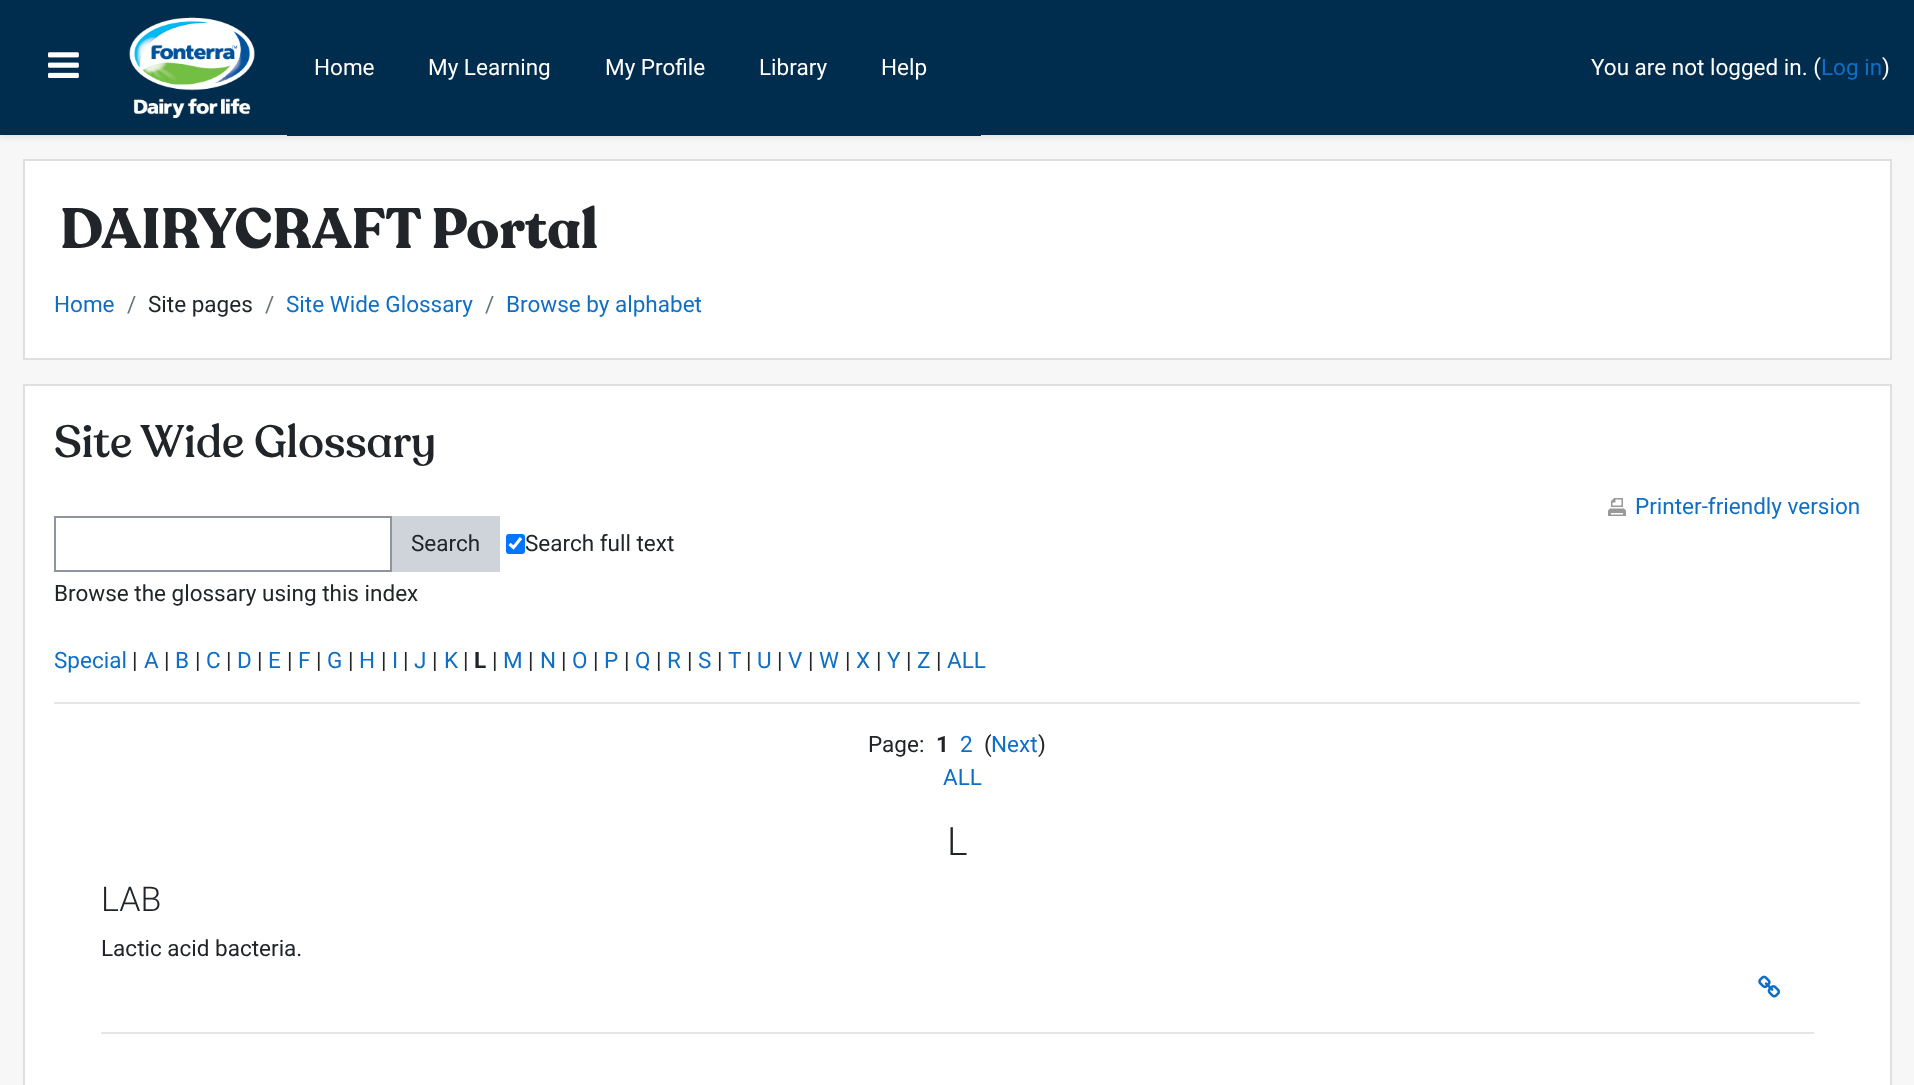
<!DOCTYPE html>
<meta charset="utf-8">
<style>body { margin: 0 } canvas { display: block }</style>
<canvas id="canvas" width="1914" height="1085"></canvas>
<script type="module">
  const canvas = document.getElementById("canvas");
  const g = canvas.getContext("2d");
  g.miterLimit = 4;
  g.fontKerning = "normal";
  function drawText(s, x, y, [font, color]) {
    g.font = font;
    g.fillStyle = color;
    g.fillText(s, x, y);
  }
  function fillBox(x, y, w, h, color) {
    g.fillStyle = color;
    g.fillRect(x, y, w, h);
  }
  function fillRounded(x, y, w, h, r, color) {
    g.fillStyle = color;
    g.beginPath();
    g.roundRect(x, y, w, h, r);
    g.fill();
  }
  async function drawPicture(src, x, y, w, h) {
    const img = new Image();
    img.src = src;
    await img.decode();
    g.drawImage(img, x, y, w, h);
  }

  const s1 = ["22.5px Roboto", "#FFFFFF"];
  const s2 = ["22.5px Roboto", "#0F6FC5"];
  const s3 = ["bold 56.25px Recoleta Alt", "#212529"];
  const s4 = ["22.5px Roboto", "#6C757D"];
  const s5 = ["22.5px Roboto", "#212529"];
  const s6 = ["500 45px Recoleta Alt", "#212529"];
  const s7 = ["bold 22.5px Roboto", "#212529"];
  const s8 = ["300 39px Roboto", "#212529"];
  const s9 = ["300 34px Roboto", "#212529"];

  fillBox(0, 0, 1914, 1085, "#F7F7F7");
  g.fillStyle = "rgba(0, 0, 0, 0.08)";
  g.filter = "blur(3px)";
  g.beginPath();
  g.rect(0, 3, 1914, 135);
  g.fill();
  g.filter = "none";
  fillBox(0, 0, 1914, 135, "#002D4E");
  await drawPicture("pic1.png", 48, 52, 31, 26);
  await drawPicture("pic2.png", 129, 17, 126, 101);
  drawText("Home", 314, 75, s1);
  fillBox(287, 135, 694, 1, "#002D4E");
  drawText("My Learning", 428, 75, s1);
  drawText("My Profile", 605, 75, s1);
  drawText("Library", 759, 75, s1);
  drawText("Help", 881, 75, s1);
  drawText("You are not logged in. (", 1591, 75, s1);
  drawText("Log in", 1821, 75, s2);
  drawText(")", 1882, 75, s1);
  g.beginPath();
  g.rect(24, 160, 1867, 199);
  g.fill();
  g.strokeStyle = "#DFDFDF";
  g.lineWidth = 2;
  g.stroke();
  drawText("DAIRYCRAFT Portal", 60, 248, s3);
  drawText("Home", 54, 312, s2);
  drawText("/", 127, 312, s4);
  drawText("Site pages", 148, 312, s5);
  drawText("/", 265, 312, s4);
  drawText("Site Wide Glossary", 286, 312, s2);
  drawText("/", 485, 312, s4);
  drawText("Browse by alphabet", 506, 312, s2);
  g.fillStyle = "#FFFFFF";
  g.beginPath();
  g.rect(24, 385, 1867, 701);
  g.fill();
  g.stroke();
  drawText("Site Wide Glossary", 54, 457, s6);
  await drawPicture("pic3.png", 1608, 498, 18, 18);
  drawText("Printer-friendly version", 1635, 514, s2);
  g.strokeStyle = "#8F959E";
  g.strokeRect(55, 517, 336, 54);
  fillBox(392, 516, 108, 56, "#CED4DA");
  drawText("Search", 411, 551, s5);
  fillRounded(506, 534, 19, 20, 3, "#0075FF");
  g.beginPath();
  g.moveTo(509.5, 544);
  g.lineTo(513.5, 547.5);
  g.lineTo(521, 538);
  g.strokeStyle = "#FFFFFF";
  g.lineWidth = 3.1;
  g.stroke();
  drawText("Search full text", 525, 551, s5);
  drawText("Browse the glossary using this index", 54, 601, s5);
  drawText("Special", 54, 668, s2);
  drawText("|", 132, 668, s5);
  drawText("A", 144, 668, s2);
  drawText("|", 164, 668, s5);
  drawText("B", 175, 668, s2);
  drawText("|", 195, 668, s5);
  drawText("C", 206, 668, s2);
  drawText("|", 226, 668, s5);
  drawText("D", 237, 668, s2);
  drawText("|", 257, 668, s5);
  drawText("E", 268, 668, s2);
  drawText("|", 287, 668, s5);
  drawText("F", 298, 668, s2);
  drawText("|", 316, 668, s5);
  drawText("G", 327, 668, s2);
  drawText("|", 348, 668, s5);
  drawText("H", 359, 668, s2);
  drawText("|", 381, 668, s5);
  drawText("I", 392, 668, s2);
  drawText("|", 403, 668, s5);
  drawText("J", 414, 668, s2);
  drawText("|", 432, 668, s5);
  drawText("K", 444, 668, s2);
  drawText("|", 463, 668, s5);
  drawText("L", 474, 668, s7);
  drawText("|", 492, 668, s5);
  drawText("M", 503, 668, s2);
  drawText("|", 528, 668, s5);
  drawText("N", 540, 668, s2);
  drawText("|", 561, 668, s5);
  drawText("O", 572, 668, s2);
  drawText("|", 593, 668, s5);
  drawText("P", 604, 668, s2);
  drawText("|", 624, 668, s5);
  drawText("Q", 635, 668, s2);
  drawText("|", 656, 668, s5);
  drawText("R", 667, 668, s2);
  drawText("|", 687, 668, s5);
  drawText("S", 698, 668, s2);
  drawText("|", 717, 668, s5);
  drawText("T", 728, 668, s2);
  drawText("|", 746, 668, s5);
  drawText("U", 757, 668, s2);
  drawText("|", 777, 668, s5);
  drawText("V", 788, 668, s2);
  drawText("|", 808, 668, s5);
  drawText("W", 819, 668, s2);
  drawText("|", 845, 668, s5);
  drawText("X", 856, 668, s2);
  drawText("|", 876, 668, s5);
  drawText("Y", 887, 668, s2);
  drawText("|", 906, 668, s5);
  drawText("Z", 917, 668, s2);
  drawText("|", 936, 668, s5);
  drawText("ALL", 947, 668, s2);
  fillBox(54, 702, 1806, 2, "#E6E6E6");
  drawText("Page:", 868, 752, s5);
  drawText("1", 936, 752, s7);
  drawText("2", 960, 752, s2);
  drawText("(", 984, 752, s5);
  drawText("Next", 991, 752, s2);
  drawText(")", 1038, 752, s5);
  drawText("ALL", 943, 785, s2);
  drawText("L", 947, 855, s8);
  drawText("LAB", 101, 911, s9);
  drawText("Lactic acid bacteria.", 101, 956, s5);
  await drawPicture("pic4.png", 1758, 975, 23, 23);
  fillBox(101, 1032, 1713, 2, "#E6E6E6");
</script>
